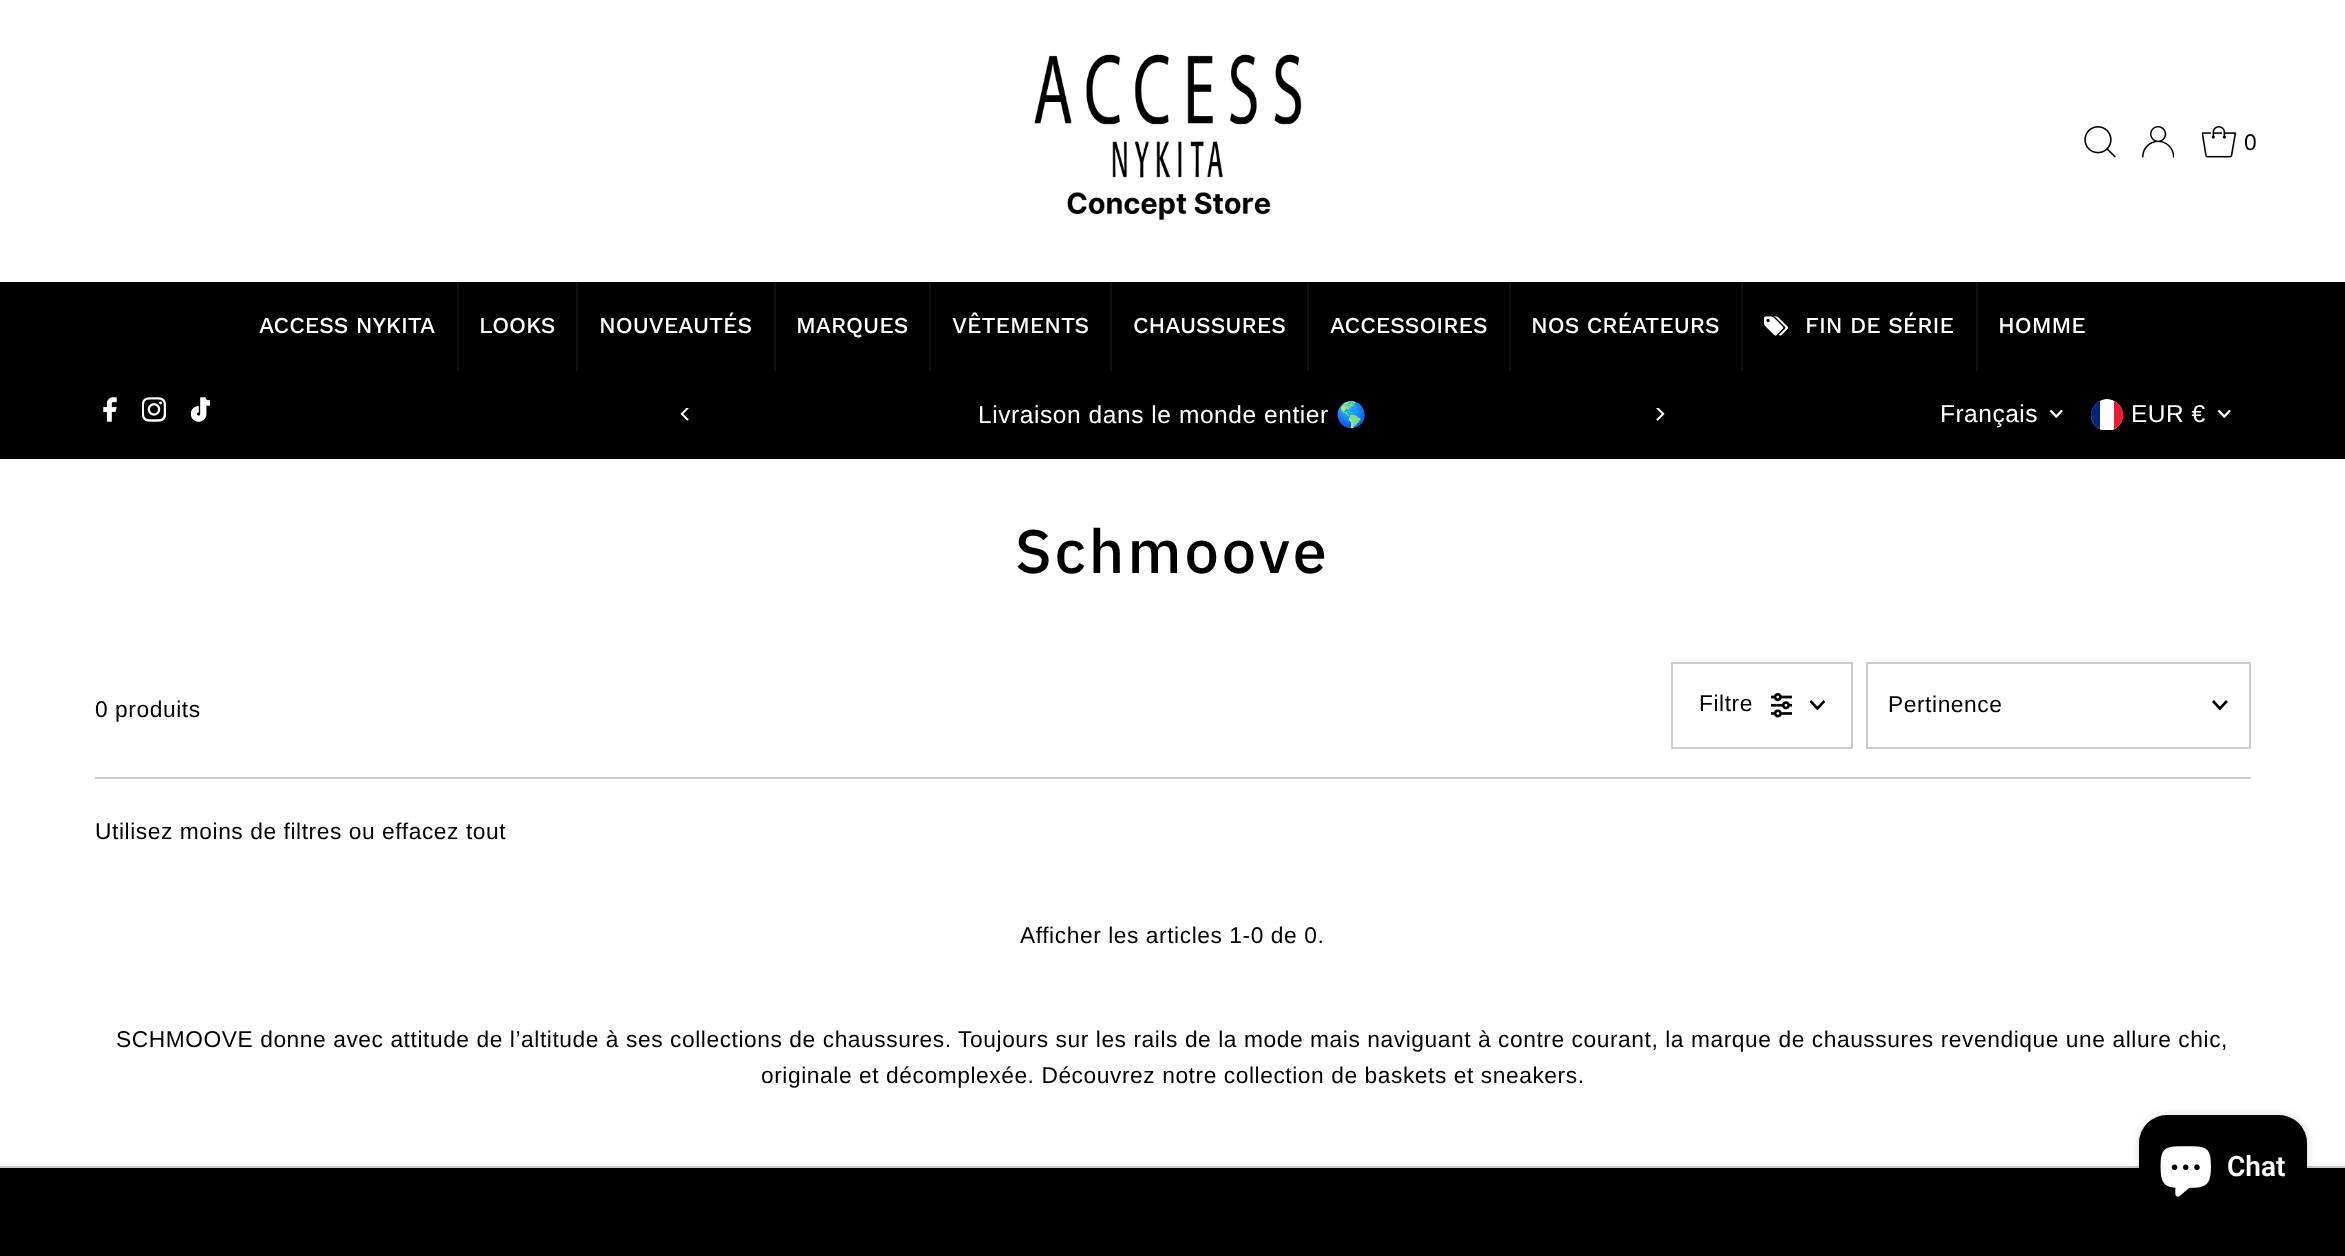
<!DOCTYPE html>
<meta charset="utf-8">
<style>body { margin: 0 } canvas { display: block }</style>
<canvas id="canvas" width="2345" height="1256"></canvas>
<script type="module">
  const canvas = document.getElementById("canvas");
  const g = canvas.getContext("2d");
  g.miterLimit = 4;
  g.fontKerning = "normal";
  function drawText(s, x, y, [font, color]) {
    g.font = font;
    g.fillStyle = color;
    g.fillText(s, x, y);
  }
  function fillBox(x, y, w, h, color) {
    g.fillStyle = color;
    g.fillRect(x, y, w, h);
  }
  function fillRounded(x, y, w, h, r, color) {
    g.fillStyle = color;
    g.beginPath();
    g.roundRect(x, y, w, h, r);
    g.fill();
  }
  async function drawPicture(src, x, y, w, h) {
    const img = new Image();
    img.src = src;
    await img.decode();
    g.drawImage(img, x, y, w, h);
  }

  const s1 = ["22.75px Liberation Sans", "#000000"];
  const s2 = ["500 22.75px Work Sans", "#FFFFFF"];
  const s3 = ["24.5px Liberation Sans", "#FFFFFF"];
  const s4 = ["24.5px Noto Color Emoji", "#FFFFFF"];
  const s5 = ["500 61.25px IBM Plex Sans", "#000000"];
  const s6 = ["600 28px Roboto", "#FFFFFF"];

  fillBox(0, 0, 2345, 1256, "#FFFFFF");
  await drawPicture("pic1.png", 1034, 54, 268, 167);
  await drawPicture("pic2.png", 2084, 126, 32, 32);
  await drawPicture("pic3.png", 2142, 126, 32, 32);
  await drawPicture("pic4.png", 2202, 126, 35, 32);
  g.letterSpacing = "0.57px";
  drawText("0", 2244, 150, s1);
  fillBox(0, 282, 2345, 177, "#000000");
  g.letterSpacing = "0px";
  drawText("ACCESS NYKITA", 259, 333, s2);
  fillBox(457, 282, 2, 89, "#0F0F0F");
  drawText("LOOKS", 479, 333, s2);
  fillBox(576, 282, 2, 89, "#0F0F0F");
  drawText("NOUVEAUTÉS", 599, 333, s2);
  fillBox(774, 282, 2, 89, "#0F0F0F");
  drawText("MARQUES", 796, 333, s2);
  fillBox(929, 282, 2, 89, "#0F0F0F");
  drawText("VÊTEMENTS", 952, 333, s2);
  fillBox(1110, 282, 2, 89, "#0F0F0F");
  drawText("CHAUSSURES", 1133, 333, s2);
  fillBox(1307, 282, 2, 89, "#0F0F0F");
  drawText("ACCESSOIRES", 1330, 333, s2);
  fillBox(1509, 282, 2, 89, "#0F0F0F");
  drawText("NOS CRÉATEURS", 1531, 333, s2);
  fillBox(1741, 282, 2, 89, "#0F0F0F");
  await drawPicture("pic5.png", 1764, 316, 25, 20);
  drawText("FIN DE SÉRIE", 1805, 333, s2);
  fillBox(1976, 282, 2, 89, "#0F0F0F");
  drawText("HOMME", 1998, 333, s2);
  await drawPicture("pic6.png", 103, 397, 14, 25);
  await drawPicture("pic7.png", 142, 397, 24, 25);
  await drawPicture("pic8.png", 191, 397, 19, 25);
  await drawPicture("pic9.png", 680, 408, 9, 13);
  g.letterSpacing = "0.57px";
  drawText("Livraison dans le monde entier", 978, 423, s3);
  drawText("🌎", 1336, 423, s4);
  await drawPicture("pic10.png", 1656, 408, 9, 13);
  g.letterSpacing = "0.5px";
  drawText("Français", 1940, 422, s3);
  await drawPicture("pic11.png", 2049, 410, 14, 8);
  g.save();
  g.beginPath();
  g.roundRect(2091, 399, 32, 32, 16);
  g.clip();
  g.beginPath();
  g.roundRect(2091, 399, 32, 31, [16, 16, 0, 0]);
  g.fill();
  fillBox(2091, 400, 9, 30, "#00267F");
  fillBox(2114, 400, 9, 30, "#F31830");
  g.restore();
  drawText("EUR €", 2131, 422, s3);
  await drawPicture("pic11.png", 2217, 410, 14, 8);
  g.letterSpacing = "3px";
  drawText("Schmoove", 1015, 573, s5);
  fillBox(95, 777, 2156, 2, "#CCCCCC");
  g.letterSpacing = "0.57px";
  drawText("0 produits", 95, 717, s1);
  g.strokeStyle = "#CCCCCC";
  g.lineWidth = 2;
  g.strokeRect(1672, 663, 180, 85);
  drawText("Filtre", 1699, 711, s1);
  await drawPicture("pic12.png", 1771, 693, 21, 25);
  await drawPicture("pic13.png", 1810, 700, 15, 11);
  g.strokeRect(1867, 663, 383, 85);
  drawText("Pertinence", 1888, 712, s1);
  await drawPicture("pic14.png", 2212, 700, 16, 11);
  drawText("Utilisez moins de filtres ou effacez tout", 95, 839, s1);
  drawText("Afficher les articles 1-0 de 0.", 1020, 943, s1);
  drawText("SCHMOOVE donne avec attitude de l’altitude à ses collections de chaussures. Toujours sur les rails de la mode mais naviguant à contre courant, la marque de chaussures revendique une allure chic,", 116, 1047, s1);
  drawText("originale et décomplexée. Découvrez notre collection de baskets et sneakers.", 761, 1083, s1);
  fillBox(0, 1168, 2345, 88, "#000000");
  fillBox(0, 1166, 2345, 2, "#CCCCCC");
  g.fillStyle = "rgba(0, 0, 0, 0.15)";
  g.filter = "blur(4.5px)";
  g.beginPath();
  g.roundRect(2139, 1115, 168, 105, 28);
  g.fill();
  g.filter = "none";
  fillRounded(2139, 1115, 168, 105, 28, "#000000");
  await drawPicture("pic15.png", 2160, 1146, 51, 51);
  g.letterSpacing = "0px";
  drawText("Chat", 2227, 1176, s6);
</script>
